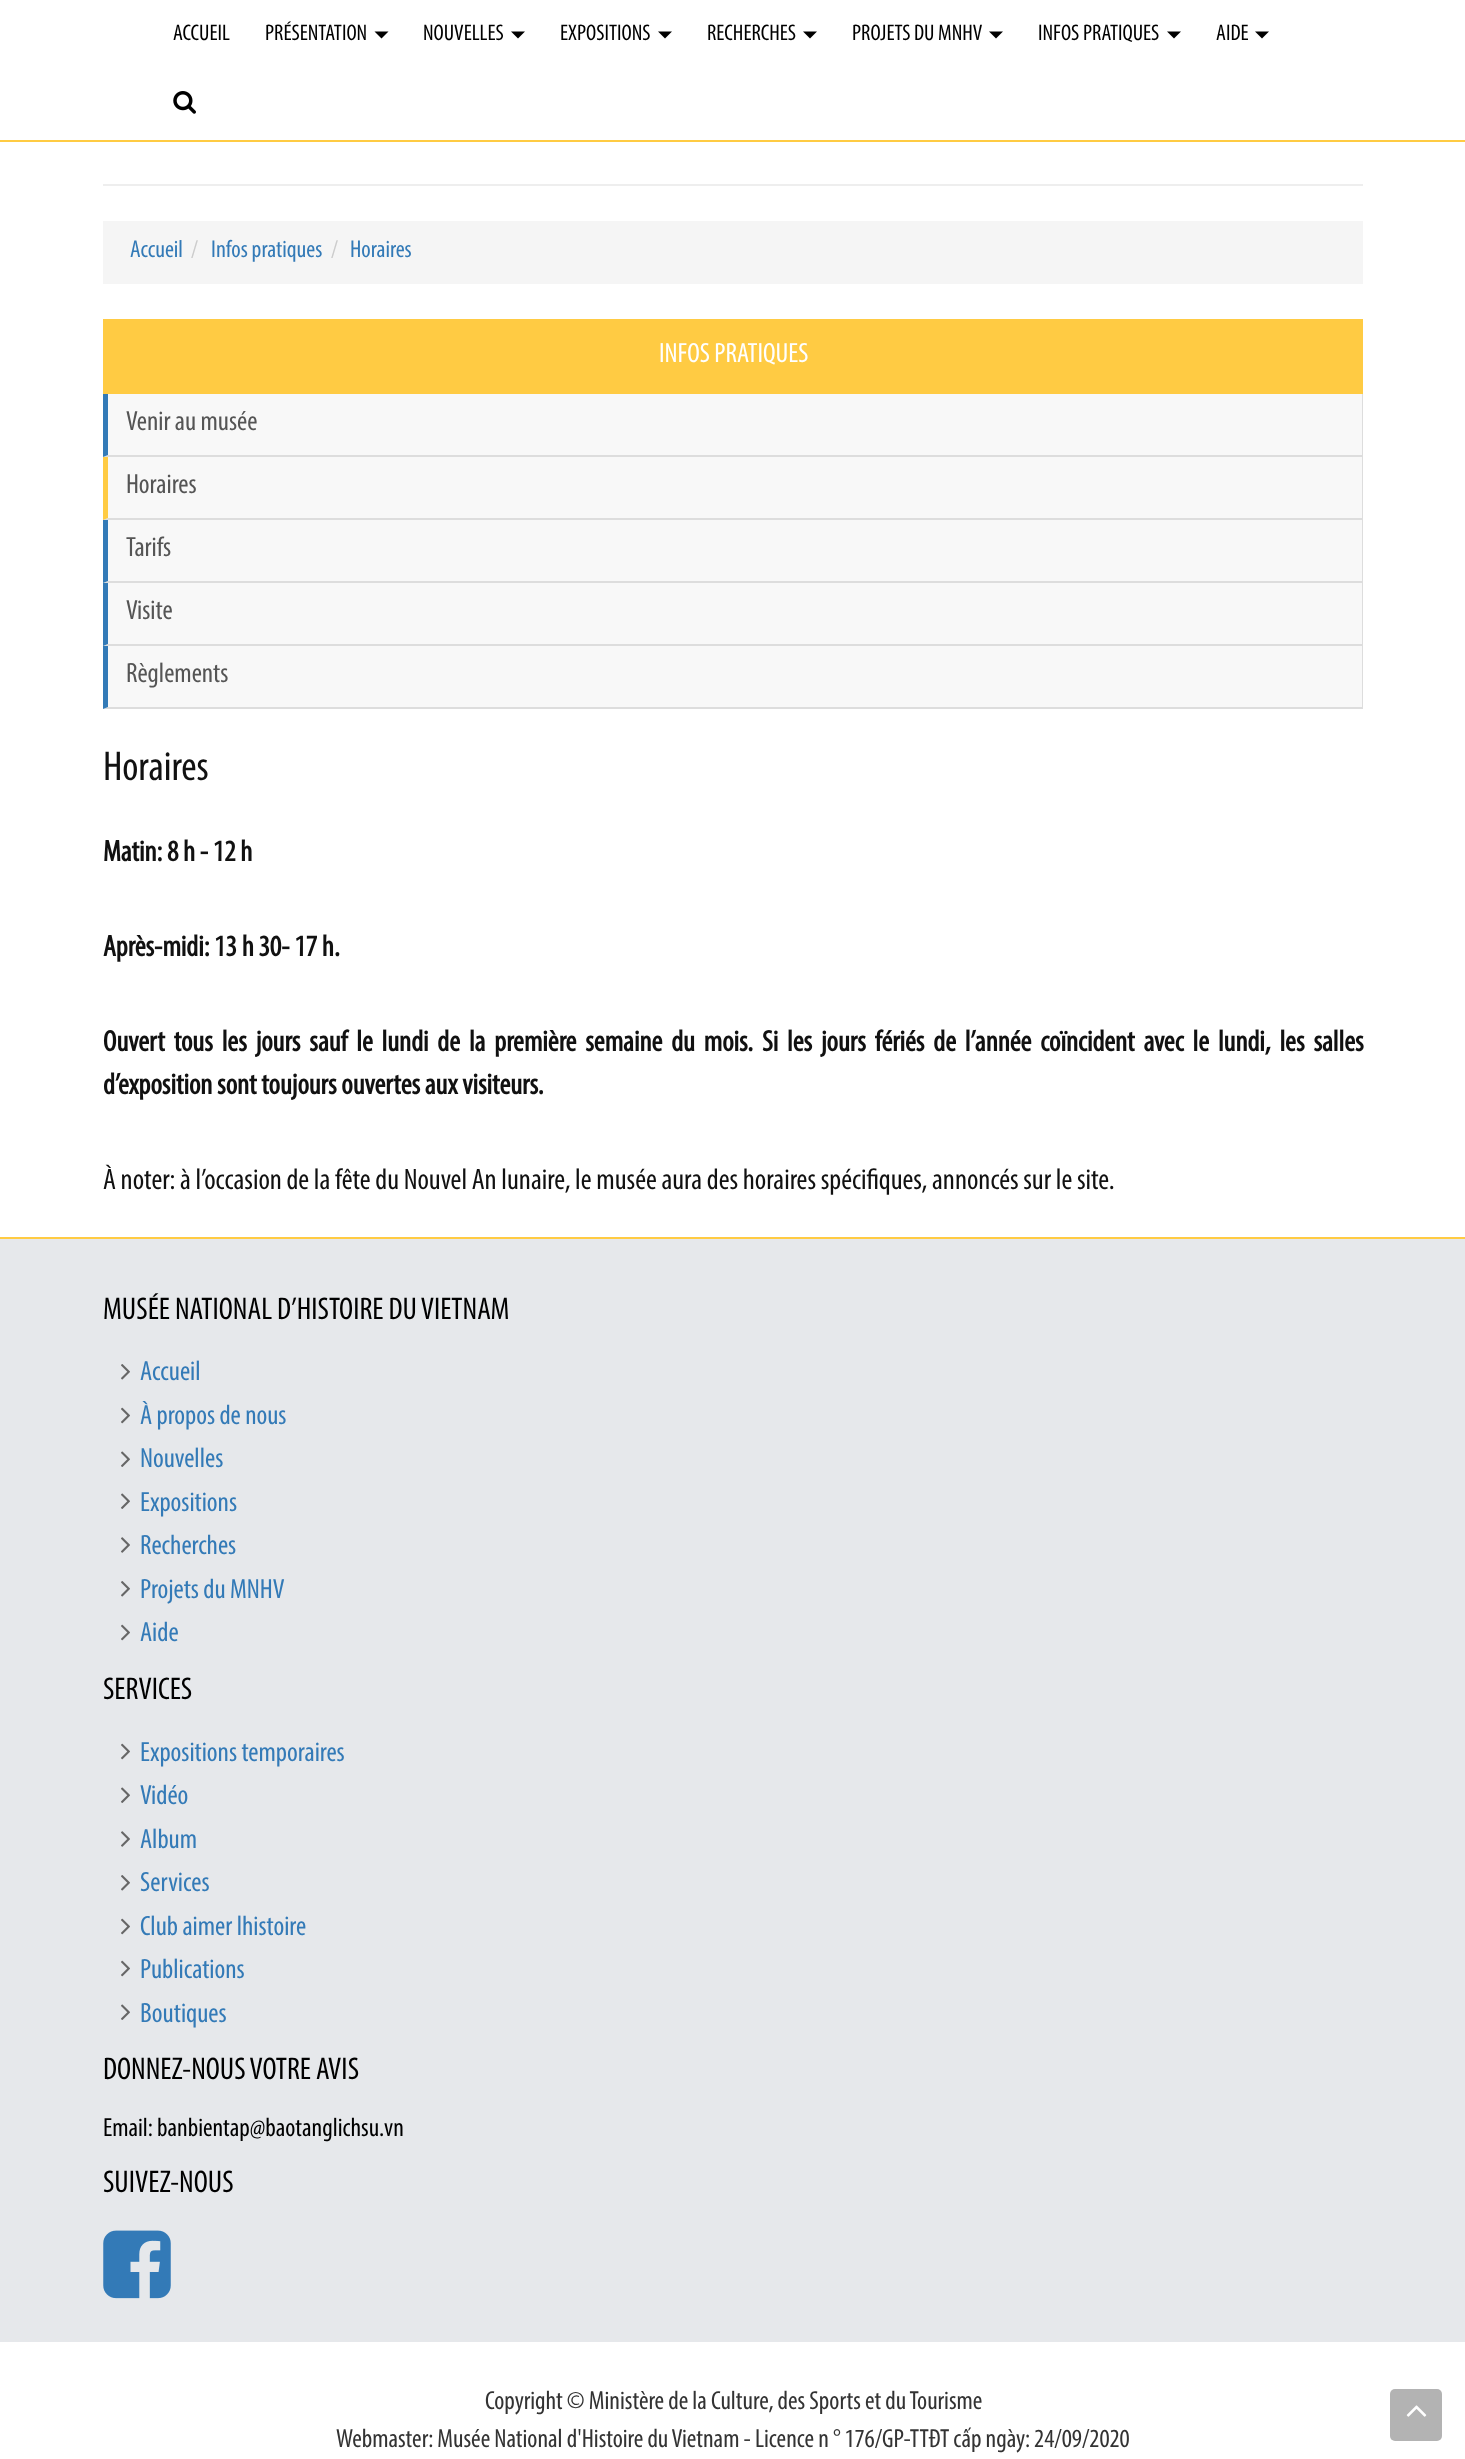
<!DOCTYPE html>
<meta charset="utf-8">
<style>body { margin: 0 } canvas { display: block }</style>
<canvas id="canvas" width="1465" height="2459"></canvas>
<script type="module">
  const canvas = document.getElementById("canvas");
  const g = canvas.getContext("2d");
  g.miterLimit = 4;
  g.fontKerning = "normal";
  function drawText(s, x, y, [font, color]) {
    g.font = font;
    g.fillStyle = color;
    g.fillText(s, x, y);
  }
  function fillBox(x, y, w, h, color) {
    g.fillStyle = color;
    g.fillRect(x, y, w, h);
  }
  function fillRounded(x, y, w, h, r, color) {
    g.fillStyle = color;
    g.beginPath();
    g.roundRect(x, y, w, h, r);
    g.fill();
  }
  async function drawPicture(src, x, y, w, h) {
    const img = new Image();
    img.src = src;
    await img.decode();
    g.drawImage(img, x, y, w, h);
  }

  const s1 = ["22.75px Myriad", "#000000"];
  const s2 = ["24.5px Myriad", "#337AB7"];
  const s3 = ["24.5px Myriad", "#CCCCCC"];
  const s4 = ["28px Myriad", "#FFFFFF"];
  const s5 = ["28px Myriad", "#555555"];
  const s6 = ["42px Myriad", "#111111"];
  const s7 = ["bold 29.75px Myriad", "#111111"];
  const s8 = ["29.75px Myriad", "#111111"];
  const s9 = ["31.5px Myriad", "#000000"];
  const s10 = ["28px Myriad", "#337AB7"];
  const s11 = ["26.25px Myriad", "#000000"];
  const s12 = ["26.25px Myriad", "#333333"];

  fillBox(0, 0, 1465, 2459, "#FFFFFF");
  fillBox(0, 140, 1465, 2, "#FFCB43");
  drawText("ACCUEIL", 173, 40, s1);
  drawText("PRÉSENTATION", 265, 40, s1);
  g.beginPath();
  g.moveTo(374.5, 31.5);
  g.lineTo(388.5, 31.5);
  g.lineTo(381.5, 38.5);
  g.closePath();
  g.fill();
  drawText("NOUVELLES", 423, 40, s1);
  g.beginPath();
  g.moveTo(511, 31.5);
  g.lineTo(525, 31.5);
  g.lineTo(518, 38.5);
  g.closePath();
  g.fill();
  drawText("EXPOSITIONS", 560, 40, s1);
  g.beginPath();
  g.moveTo(658, 31.5);
  g.lineTo(672, 31.5);
  g.lineTo(665, 38.5);
  g.closePath();
  g.fill();
  drawText("RECHERCHES", 707, 40, s1);
  g.beginPath();
  g.moveTo(803, 31.5);
  g.lineTo(817, 31.5);
  g.lineTo(810, 38.5);
  g.closePath();
  g.fill();
  drawText("PROJETS DU MNHV", 852, 40, s1);
  g.beginPath();
  g.moveTo(989, 31.5);
  g.lineTo(1003, 31.5);
  g.lineTo(996, 38.5);
  g.closePath();
  g.fill();
  drawText("INFOS PRATIQUES", 1038, 40, s1);
  g.beginPath();
  g.moveTo(1167, 31.5);
  g.lineTo(1181, 31.5);
  g.lineTo(1174, 38.5);
  g.closePath();
  g.fill();
  drawText("AIDE", 1216, 40, s1);
  g.beginPath();
  g.moveTo(1255, 31.5);
  g.lineTo(1269, 31.5);
  g.lineTo(1262, 38.5);
  g.closePath();
  g.fill();
  await drawPicture("pic1.png", 173, 91, 23, 23);
  fillBox(103, 184, 1260, 2, "#EEEEEE");
  fillBox(103, 221, 1260, 63, "#F5F5F5");
  drawText("Accueil", 130, 257, s2);
  drawText("/", 191, 257, s3);
  drawText("Infos pratiques", 211, 257, s2);
  drawText("/", 331, 257, s3);
  drawText("Horaires", 350, 257, s2);
  fillBox(103, 394, 1259, 315, "#F8F8F8");
  fillBox(103, 319, 1260, 75, "#FFCB43");
  drawText("INFOS PRATIQUES", 659, 362, s4);
  fillBox(1362, 394, 1, 315, "#DDDDDD");
  g.beginPath();
  g.moveTo(1363, 457);
  g.lineTo(103, 457);
  g.lineTo(108, 455);
  g.lineTo(1362, 455);
  g.closePath();
  g.fill();
  g.fillStyle = "#337AB7";
  g.beginPath();
  g.moveTo(103, 457);
  g.lineTo(103, 394);
  g.lineTo(108, 394);
  g.lineTo(108, 455);
  g.closePath();
  g.fill();
  drawText("Venir au musée", 126, 430, s5);
  g.fillStyle = "#DDDDDD";
  g.beginPath();
  g.moveTo(1363, 520);
  g.lineTo(103, 520);
  g.lineTo(108, 518);
  g.lineTo(1362, 518);
  g.closePath();
  g.fill();
  g.fillStyle = "#FFCB43";
  g.beginPath();
  g.moveTo(103, 520);
  g.lineTo(103, 457);
  g.lineTo(108, 457);
  g.lineTo(108, 518);
  g.closePath();
  g.fill();
  drawText("Horaires", 126, 493, s5);
  g.fillStyle = "#DDDDDD";
  g.beginPath();
  g.moveTo(1363, 583);
  g.lineTo(103, 583);
  g.lineTo(108, 581);
  g.lineTo(1362, 581);
  g.closePath();
  g.fill();
  g.fillStyle = "#337AB7";
  g.beginPath();
  g.moveTo(103, 583);
  g.lineTo(103, 520);
  g.lineTo(108, 520);
  g.lineTo(108, 581);
  g.closePath();
  g.fill();
  drawText("Tarifs", 126, 556, s5);
  g.fillStyle = "#DDDDDD";
  g.beginPath();
  g.moveTo(1363, 646);
  g.lineTo(103, 646);
  g.lineTo(108, 644);
  g.lineTo(1362, 644);
  g.closePath();
  g.fill();
  g.fillStyle = "#337AB7";
  g.beginPath();
  g.moveTo(103, 646);
  g.lineTo(103, 583);
  g.lineTo(108, 583);
  g.lineTo(108, 644);
  g.closePath();
  g.fill();
  drawText("Visite", 126, 619, s5);
  g.fillStyle = "#DDDDDD";
  g.beginPath();
  g.moveTo(1363, 709);
  g.lineTo(103, 709);
  g.lineTo(108, 707);
  g.lineTo(1362, 707);
  g.closePath();
  g.fill();
  g.fillStyle = "#337AB7";
  g.beginPath();
  g.moveTo(103, 709);
  g.lineTo(103, 646);
  g.lineTo(108, 646);
  g.lineTo(108, 707);
  g.closePath();
  g.fill();
  drawText("Règlements", 126, 682, s5);
  drawText("Horaires", 103, 780, s6);
  drawText("Matin: 8 h - 12 h", 103, 861, s7);
  drawText("Après-midi: 13 h 30- 17 h.", 103, 956, s7);
  g.wordSpacing = "4.2px";
  drawText("Ouvert tous les jours sauf le lundi de la première semaine du mois. Si les jours fériés de l’année coïncident avec le lundi, les salles", 103, 1051, s7);
  g.wordSpacing = "0px";
  drawText("d’exposition sont toujours ouvertes aux visiteurs.", 103, 1094, s7);
  drawText("À noter: à l’occasion de la fête du Nouvel An lunaire, le musée aura des horaires spécifiques, annoncés sur le site.", 103, 1189, s8);
  fillBox(0, 1239, 1465, 1103, "#E6E8EB");
  fillBox(0, 1237, 1465, 2, "#FFCB43");
  drawText("MUSÉE NATIONAL D’HISTOIRE DU VIETNAM", 103, 1319, s9);
  await drawPicture("pic2.png", 121, 1364, 9, 16);
  drawText("Accueil", 140, 1380, s10);
  await drawPicture("pic3.png", 121, 1407, 9, 17);
  drawText("À propos de nous", 140, 1424, s10);
  await drawPicture("pic4.png", 121, 1451, 9, 16);
  drawText("Nouvelles", 140, 1467, s10);
  await drawPicture("pic4.png", 121, 1493, 9, 16);
  drawText("Expositions", 140, 1511, s10);
  await drawPicture("pic5.png", 121, 1537, 9, 16);
  drawText("Recherches", 140, 1554, s10);
  await drawPicture("pic2.png", 121, 1581, 9, 16);
  drawText("Projets du MNHV", 140, 1598, s10);
  await drawPicture("pic3.png", 121, 1624, 9, 17);
  drawText("Aide", 140, 1641, s10);
  drawText("SERVICES", 103, 1699, s9);
  await drawPicture("pic3.png", 121, 1743, 9, 17);
  drawText("Expositions temporaires", 140, 1761, s10);
  await drawPicture("pic4.png", 121, 1787, 9, 16);
  drawText("Vidéo", 140, 1804, s10);
  await drawPicture("pic5.png", 121, 1831, 9, 16);
  drawText("Album", 140, 1848, s10);
  await drawPicture("pic2.png", 121, 1875, 9, 16);
  drawText("Services", 140, 1891, s10);
  await drawPicture("pic3.png", 121, 1918, 9, 17);
  drawText("Club aimer lhistoire", 140, 1935, s10);
  await drawPicture("pic3.png", 121, 1960, 9, 17);
  drawText("Publications", 140, 1978, s10);
  await drawPicture("pic4.png", 121, 2004, 9, 16);
  drawText("Boutiques", 140, 2022, s10);
  drawText("DONNEZ-NOUS VOTRE AVIS", 103, 2079, s9);
  drawText("Email: banbientap@baotanglichsu.vn", 103, 2136, s11);
  drawText("SUIVEZ-NOUS", 103, 2192, s9);
  await drawPicture("pic6.png", 103, 2230, 68, 69);
  drawText("Copyright © Ministère de la Culture, des Sports et du Tourisme", 485, 2409, s12);
  drawText("Webmaster: Musée National d'Histoire du Vietnam - Licence n ° 176/GP-TTĐT cấp ngày: 24/09/2020", 336, 2447, s12);
  fillRounded(1390, 2389, 52, 52, 5, "#B3B3B3");
  await drawPicture("pic7.png", 1406, 2405, 21, 12);
</script>
